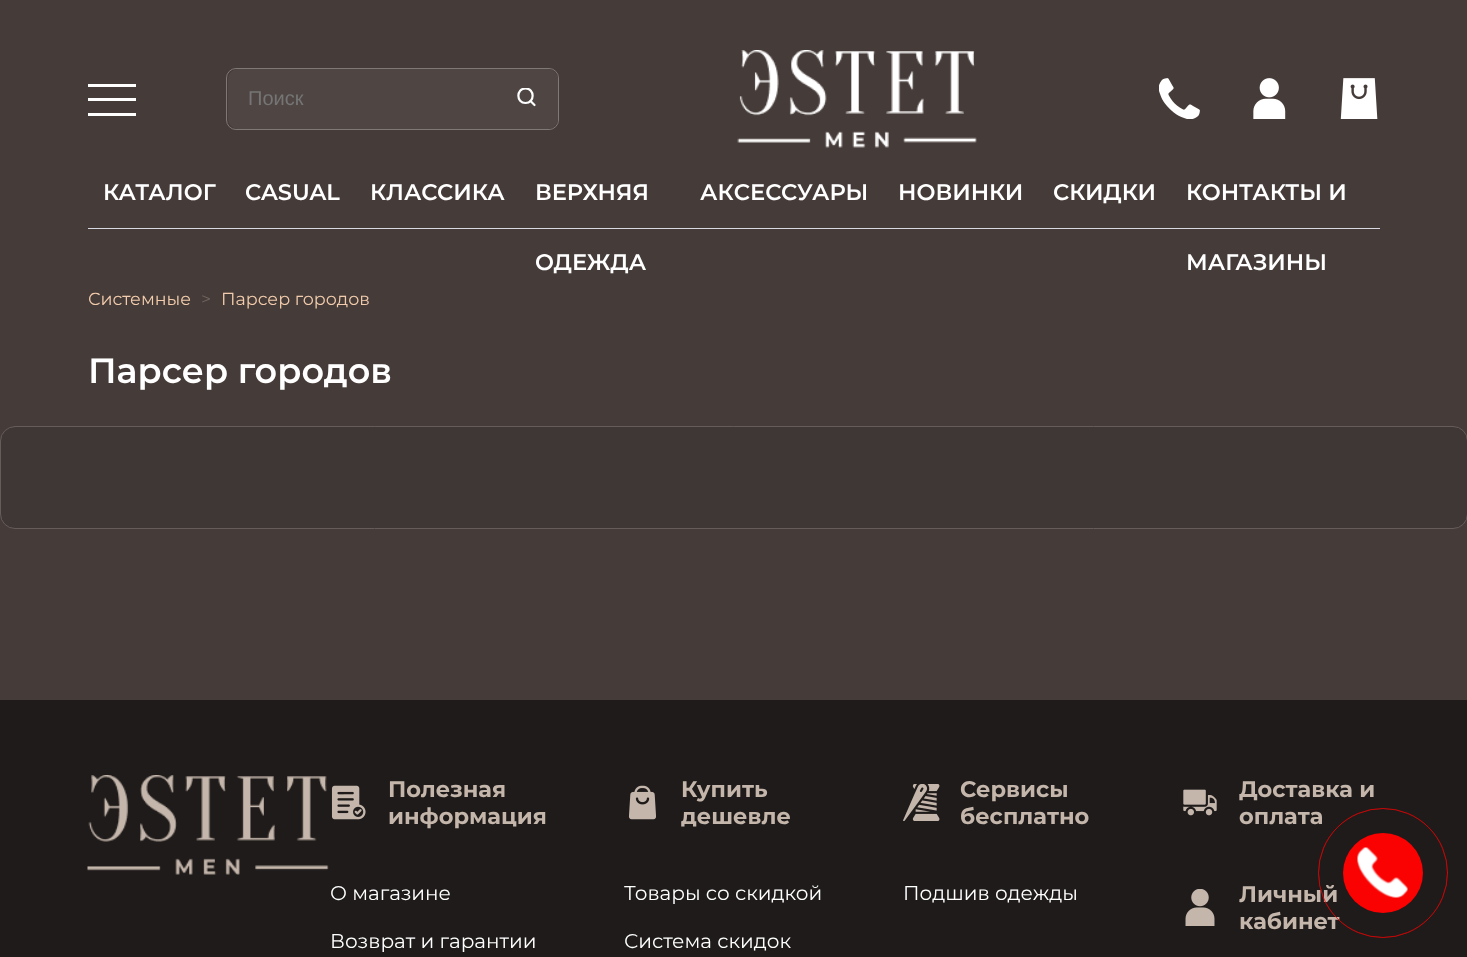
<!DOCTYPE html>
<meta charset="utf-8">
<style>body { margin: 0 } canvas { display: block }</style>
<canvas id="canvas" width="1467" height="957"></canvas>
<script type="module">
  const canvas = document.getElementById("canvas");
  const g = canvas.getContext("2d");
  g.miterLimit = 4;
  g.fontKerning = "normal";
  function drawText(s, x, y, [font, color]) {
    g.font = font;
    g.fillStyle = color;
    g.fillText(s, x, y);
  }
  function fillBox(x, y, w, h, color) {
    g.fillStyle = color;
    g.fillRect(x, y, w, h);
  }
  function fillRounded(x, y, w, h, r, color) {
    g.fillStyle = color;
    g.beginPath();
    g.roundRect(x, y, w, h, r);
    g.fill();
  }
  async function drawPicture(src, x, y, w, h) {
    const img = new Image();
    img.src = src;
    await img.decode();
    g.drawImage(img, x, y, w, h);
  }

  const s1 = ["20px Liberation Sans", "#757575"];
  const s2 = ["600 22.5px Montserrat", "#FFFFFF"];
  const s3 = ["17.5px Montserrat", "#F2CCAC"];
  const s4 = ["17.5px Montserrat", "#71635E"];
  const s5 = ["600 35px Montserrat", "#FFFFFF"];
  const s6 = ["bold 22.5px Montserrat", "#C4B6AB"];
  const s7 = ["20px Montserrat", "#FFFFFF"];

  fillBox(0, 0, 1467, 957, "#453B38");
  fillBox(88, 84, 48, 3, "#FFFFFF");
  fillBox(88, 98, 48, 3, "#FFFFFF");
  fillBox(88, 113, 48, 3, "#FFFFFF");
  g.beginPath();
  g.roundRect(226.5, 68.5, 332, 61, 9.5);
  g.strokeStyle = "#7E7876";
  g.stroke();
  fillRounded(228, 69, 330, 60, 10, "#4F4644");
  drawText("Поиск", 248, 105, s1);
  g.save();
  g.beginPath();
  g.rect(516, 88, 20, 19);
  g.clip();
  g.beginPath();
  g.moveTo(525.5, 103);
  g.bezierCurveTo(535, 103, 535, 88.5, 525.5, 88.5);
  g.bezierCurveTo(516, 88.5, 516, 103, 525.5, 103);
  g.closePath();
  g.strokeStyle = "#FFFFFF";
  g.lineWidth = 2.2;
  g.lineCap = "round";
  g.lineJoin = "round";
  g.stroke();
  g.restore();
  g.beginPath();
  g.moveTo(534.5, 105);
  g.lineTo(530.5, 101);
  g.strokeStyle = "#FFFFFF";
  g.lineWidth = 2.2;
  g.lineCap = "round";
  g.lineJoin = "round";
  g.stroke();
  await drawPicture("pic1.png", 737, 50, 240, 98);
  await drawPicture("pic2.png", 1159, 78, 41, 41);
  await drawPicture("pic3.png", 1253, 78, 33, 41);
  await drawPicture("pic4.png", 1340, 78, 38, 41);
  fillBox(88, 228, 1292, 1, "#D8D8E3");
  drawText("КАТАЛОГ", 103, 200, s2);
  drawText("CASUAL", 245, 200, s2);
  drawText("КЛАССИКА", 370, 200, s2);
  drawText("ВЕРХНЯЯ", 535, 200, s2);
  drawText("ОДЕЖДА", 535, 270, s2);
  drawText("АКCЕССУАРЫ", 700, 200, s2);
  drawText("НОВИНКИ", 898, 200, s2);
  drawText("СКИДКИ", 1053, 200, s2);
  drawText("КОНТАКТЫ И", 1186, 200, s2);
  drawText("МАГАЗИНЫ", 1186, 270, s2);
  drawText("Системные", 88, 305, s3);
  drawText(">", 201, 305, s4);
  drawText("Парсер городов", 221, 305, s3);
  drawText("Парсер городов", 88, 383, s5);
  g.fillStyle = "#3E3735";
  g.beginPath();
  g.roundRect(0.5, 426.5, 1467, 102, 14.5);
  g.fill();
  g.strokeStyle = "#665D5B";
  g.lineWidth = 1;
  g.lineJoin = "miter";
  g.stroke();
  fillBox(0, 700, 1467, 257, "#1E1B1A");
  await drawPicture("pic5.png", 87, 775, 242, 100);
  await drawPicture("pic6.png", 331, 785, 35, 35);
  drawText("Полезная", 388, 797, s6);
  drawText("информация", 388, 824, s6);
  drawText("О магазине", 330, 900, s7);
  drawText("Возврат и гарантии", 330, 948, s7);
  await drawPicture("pic7.png", 628, 785, 28, 35);
  drawText("Купить", 681, 797, s6);
  drawText("дешевле", 681, 824, s6);
  drawText("Товары со скидкой", 624, 900, s7);
  drawText("Система скидок", 624, 948, s7);
  await drawPicture("pic8.png", 903, 784, 37, 37);
  drawText("Сервисы", 960, 797, s6);
  drawText("бесплатно", 960, 824, s6);
  drawText("Подшив одежды", 903, 900, s7);
  await drawPicture("pic9.png", 1183, 789, 34, 27);
  drawText("Доставка и", 1239, 797, s6);
  drawText("оплата", 1239, 824, s6);
  await drawPicture("pic10.png", 1185, 889, 30, 37);
  drawText("Личный", 1239, 902, s6);
  drawText("кабинет", 1239, 929, s6);
  g.fillStyle = "#FA0202";
  g.beginPath();
  g.arc(1383, 873, 40, 0, Math.PI * 2);
  g.fill();
  await drawPicture("pic11.png", 1357, 847, 51, 51);
  g.beginPath();
  g.arc(1383, 873, 64.5, 0, Math.PI * 2);
  g.strokeStyle = "rgba(250, 2, 2, 0.5)";
  g.stroke();
  g.beginPath();
  g.arc(1383, 873, 64.5, 0, Math.PI * 2);
  g.stroke();
</script>
